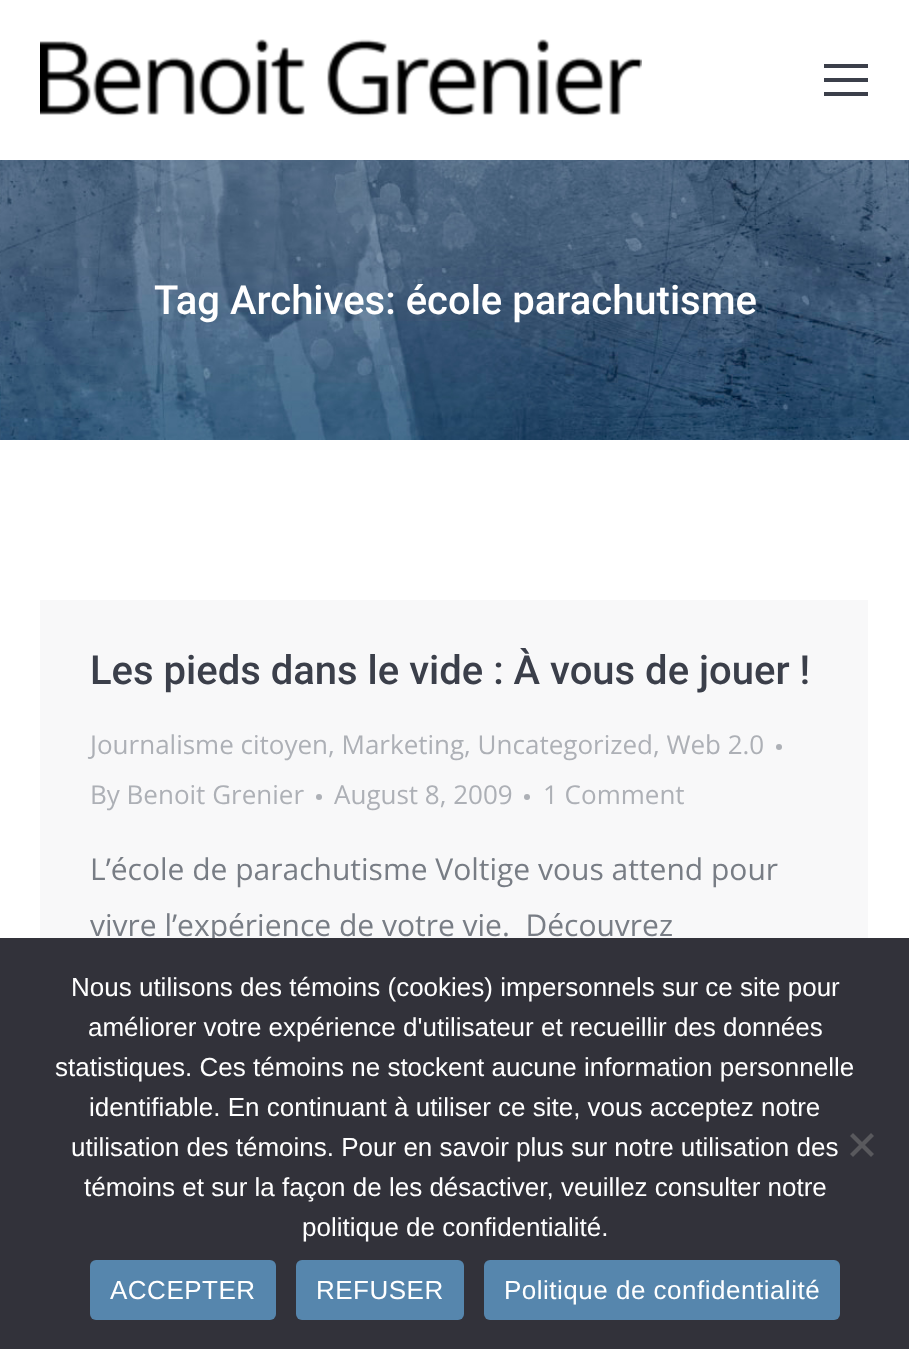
<!DOCTYPE html>
<meta charset="utf-8">
<style>body { margin: 0 } canvas { display: block }</style>
<canvas id="canvas" width="909" height="1349"></canvas>
<script type="module">
  const canvas = document.getElementById("canvas");
  const g = canvas.getContext("2d");
  g.miterLimit = 4;
  g.fontKerning = "normal";
  function drawText(s, x, y, [font, color]) {
    g.font = font;
    g.fillStyle = color;
    g.fillText(s, x, y);
  }
  function fillBox(x, y, w, h, color) {
    g.fillStyle = color;
    g.fillRect(x, y, w, h);
  }
  function fillRounded(x, y, w, h, r, color) {
    g.fillStyle = color;
    g.beginPath();
    g.roundRect(x, y, w, h, r);
    g.fill();
  }
  async function drawPicture(src, x, y, w, h) {
    const img = new Image();
    img.src = src;
    await img.decode();
    g.drawImage(img, x, y, w, h);
  }

  const s1 = ["500 40px Roboto", "#FFFFFF"];
  const s2 = ["500 40px Roboto", "#3B3F4A"];
  const s3 = ["26px Open Sans", "#ADB0B6"];
  const s4 = ["30px Open Sans", "#787D85"];
  const s5 = ["26px Liberation Sans", "#FFFFFF"];

  fillBox(0, 0, 909, 1349, "#FFFFFF");
  await drawPicture("pic1.png", 40, 39, 602, 78);
  fillBox(824, 64, 44, 4, "#3B3F4A");
  fillBox(824, 78, 44, 4, "#3B3F4A");
  fillBox(824, 92, 44, 4, "#3B3F4A");
  await drawPicture("pic2.png", 0, 160, 909, 280);
  drawText("Tag Archives: école parachutisme", 154, 314, s1);
  fillBox(40, 600, 828, 338, "#F8F8F9");
  drawText("Les pieds dans le vide : À vous de jouer !", 90, 684, s2);
  drawText("Journalisme citoyen, Marketing, Uncategorized, Web 2.0", 90, 754, s3);
  g.beginPath();
  g.arc(779, 747, 3, 0, Math.PI * 2);
  g.fill();
  drawText("By Benoit Grenier", 90, 804, s3);
  g.beginPath();
  g.arc(319, 797, 3, 0, Math.PI * 2);
  g.fill();
  drawText("August 8, 2009", 334, 804, s3);
  g.beginPath();
  g.arc(527, 797, 3, 0, Math.PI * 2);
  g.fill();
  drawText("1 Comment", 543, 804, s3);
  drawText("L’école de parachutisme Voltige vous attend pour", 90, 880, s4);
  drawText("vivre l’expérience de votre vie.  Découvrez", 90, 936, s4);
  fillBox(0, 938, 909, 411, "#32323A");
  drawText("Nous utilisons des témoins (cookies) impersonnels sur ce site pour", 71, 996, s5);
  drawText("améliorer votre expérience d'utilisateur et recueillir des données", 88, 1036, s5);
  drawText("statistiques. Ces témoins ne stockent aucune information personnelle", 55, 1076, s5);
  drawText("identifiable. En continuant à utiliser ce site, vous acceptez notre", 89, 1116, s5);
  drawText("utilisation des témoins. Pour en savoir plus sur notre utilisation des", 71, 1156, s5);
  drawText("témoins et sur la façon de les désactiver, veuillez consulter notre", 84, 1196, s5);
  drawText("politique de confidentialité.", 302, 1236, s5);
  g.fillStyle = "#59595D";
  g.beginPath();
  g.moveTo(871, 1133);
  g.lineTo(874, 1136);
  g.lineTo(853, 1157);
  g.lineTo(850, 1154);
  g.closePath();
  g.fill();
  g.beginPath();
  g.moveTo(850, 1136);
  g.lineTo(853, 1133);
  g.lineTo(874, 1154);
  g.lineTo(871, 1157);
  g.closePath();
  g.fill();
  fillRounded(90, 1260, 186, 60, 6, "#5686AD");
  g.letterSpacing = "0.5px";
  drawText("ACCEPTER", 110, 1299, s5);
  fillRounded(296, 1260, 168, 60, 6, "#5686AD");
  drawText("REFUSER", 316, 1299, s5);
  fillRounded(484, 1260, 356, 60, 6, "#5686AD");
  drawText("Politique de confidentialité", 504, 1299, s5);
</script>
